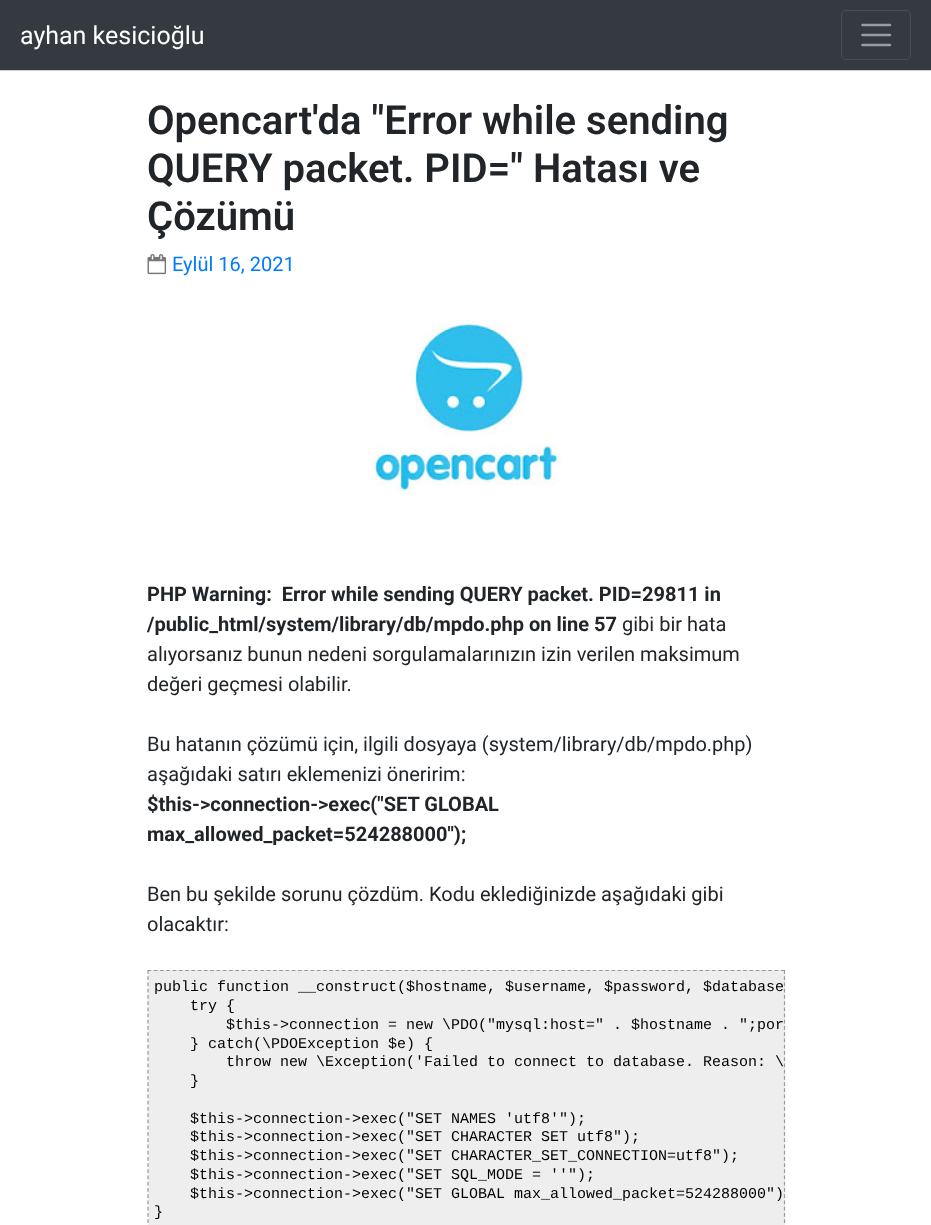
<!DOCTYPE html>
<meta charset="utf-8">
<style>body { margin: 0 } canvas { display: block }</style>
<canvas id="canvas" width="931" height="1225"></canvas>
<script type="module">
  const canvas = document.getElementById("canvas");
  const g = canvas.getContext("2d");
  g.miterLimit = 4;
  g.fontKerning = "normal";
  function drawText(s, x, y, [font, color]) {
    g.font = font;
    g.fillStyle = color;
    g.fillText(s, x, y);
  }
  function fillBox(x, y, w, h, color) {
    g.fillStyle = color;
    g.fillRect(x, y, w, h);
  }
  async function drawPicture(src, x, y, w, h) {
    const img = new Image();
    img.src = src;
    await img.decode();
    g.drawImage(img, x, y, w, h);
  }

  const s1 = ["25px Roboto", "#FFFFFF"];
  const s2 = ["600 40px Roboto", "#212529"];
  const s3 = ["20px Roboto", "#007BFF"];
  const s4 = ["bold 20px Roboto", "#212529"];
  const s5 = ["20px Roboto", "#212529"];
  const s6 = ["15px Liberation Mono", "#000000"];

  fillBox(0, 0, 931, 1225, "#FFFFFF");
  fillBox(0, 0, 931, 70, "#343A40");
  drawText("ayhan kesicioğlu", 20, 44, s1);
  g.beginPath();
  g.roundRect(841.5, 10.5, 69, 49, 4.5);
  g.strokeStyle = "#484E53";
  g.stroke();
  g.beginPath();
  g.moveTo(862.5, 25);
  g.lineTo(890, 25);
  g.moveTo(862.5, 35);
  g.lineTo(890, 35);
  g.moveTo(862.5, 45);
  g.lineTo(890, 45);
  g.strokeStyle = "#9A9DA0";
  g.lineWidth = 2.5;
  g.lineCap = "round";
  g.stroke();
  fillBox(0, 70, 931, 1, "#CCCCCC");
  drawText("Opencart'da \"Error while sending", 147, 134, s2);
  drawText("QUERY packet. PID=\" Hatası ve", 147, 182, s2);
  drawText("Çözümü", 147, 230, s2);
  await drawPicture("pic1.png", 147, 254, 20, 21);
  drawText("Eylül 16, 2021", 172, 271, s3);
  await drawPicture("pic2.png", 371, 320, 190, 175);
  drawText("PHP Warning:  Error while sending QUERY packet. PID=29811 in", 147, 601, s4);
  drawText("/public_html/system/library/db/mpdo.php on line 57", 147, 631, s4);
  drawText("gibi bir hata", 622, 631, s5);
  drawText("alıyorsanız bunun nedeni sorgulamalarınızın izin verilen maksimum", 147, 661, s5);
  drawText("değeri geçmesi olabilir.", 147, 691, s5);
  drawText("Bu hatanın çözümü için, ilgili dosyaya (system/library/db/mpdo.php)", 147, 751, s5);
  drawText("aşağıdaki satırı eklemenizi öneririm:", 147, 781, s5);
  drawText("$this->connection->exec(\"SET GLOBAL", 147, 811, s4);
  drawText("max_allowed_packet=524288000\");", 147, 841, s4);
  drawText("Ben bu şekilde sorunu çözdüm. Kodu eklediğinizde aşağıdaki gibi", 147, 901, s5);
  drawText("olacaktır:", 147, 931, s5);
  fillBox(148, 970, 637, 255, "#EEEEEE");
  g.beginPath();
  g.moveTo(147.5, 970.5);
  g.lineTo(785, 970.5);
  g.strokeStyle = "#999999";
  g.lineWidth = 1.2;
  g.lineCap = "butt";
  g.setLineDash([3.75, 2.52]);
  g.stroke();
  g.beginPath();
  g.moveTo(784.5, 970);
  g.lineTo(784.5, 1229);
  g.setLineDash([3.75, 2.48]);
  g.stroke();
  g.beginPath();
  g.moveTo(148, 970);
  g.lineTo(148, 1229);
  g.stroke();
  drawText("public function __construct($hostname, $username, $password, $database", 154, 991, s6);
  drawText("try {", 190, 1010, s6);
  drawText("$this->connection = new \\PDO(\"mysql:host=\" . $hostname . \";por", 226, 1029, s6);
  drawText("} catch(\\PDOException $e) {", 190, 1048, s6);
  drawText("throw new \\Exception('Failed to connect to database. Reason: \\", 226, 1066, s6);
  drawText("}", 190, 1085, s6);
  drawText("$this->connection->exec(\"SET NAMES 'utf8'\");", 190, 1123, s6);
  drawText("$this->connection->exec(\"SET CHARACTER SET utf8\");", 190, 1141, s6);
  drawText("$this->connection->exec(\"SET CHARACTER_SET_CONNECTION=utf8\");", 190, 1160, s6);
  drawText("$this->connection->exec(\"SET SQL_MODE = ''\");", 190, 1179, s6);
  drawText("$this->connection->exec(\"SET GLOBAL max_allowed_packet=524288000\")", 190, 1198, s6);
  drawText("}", 154, 1216, s6);
</script>
